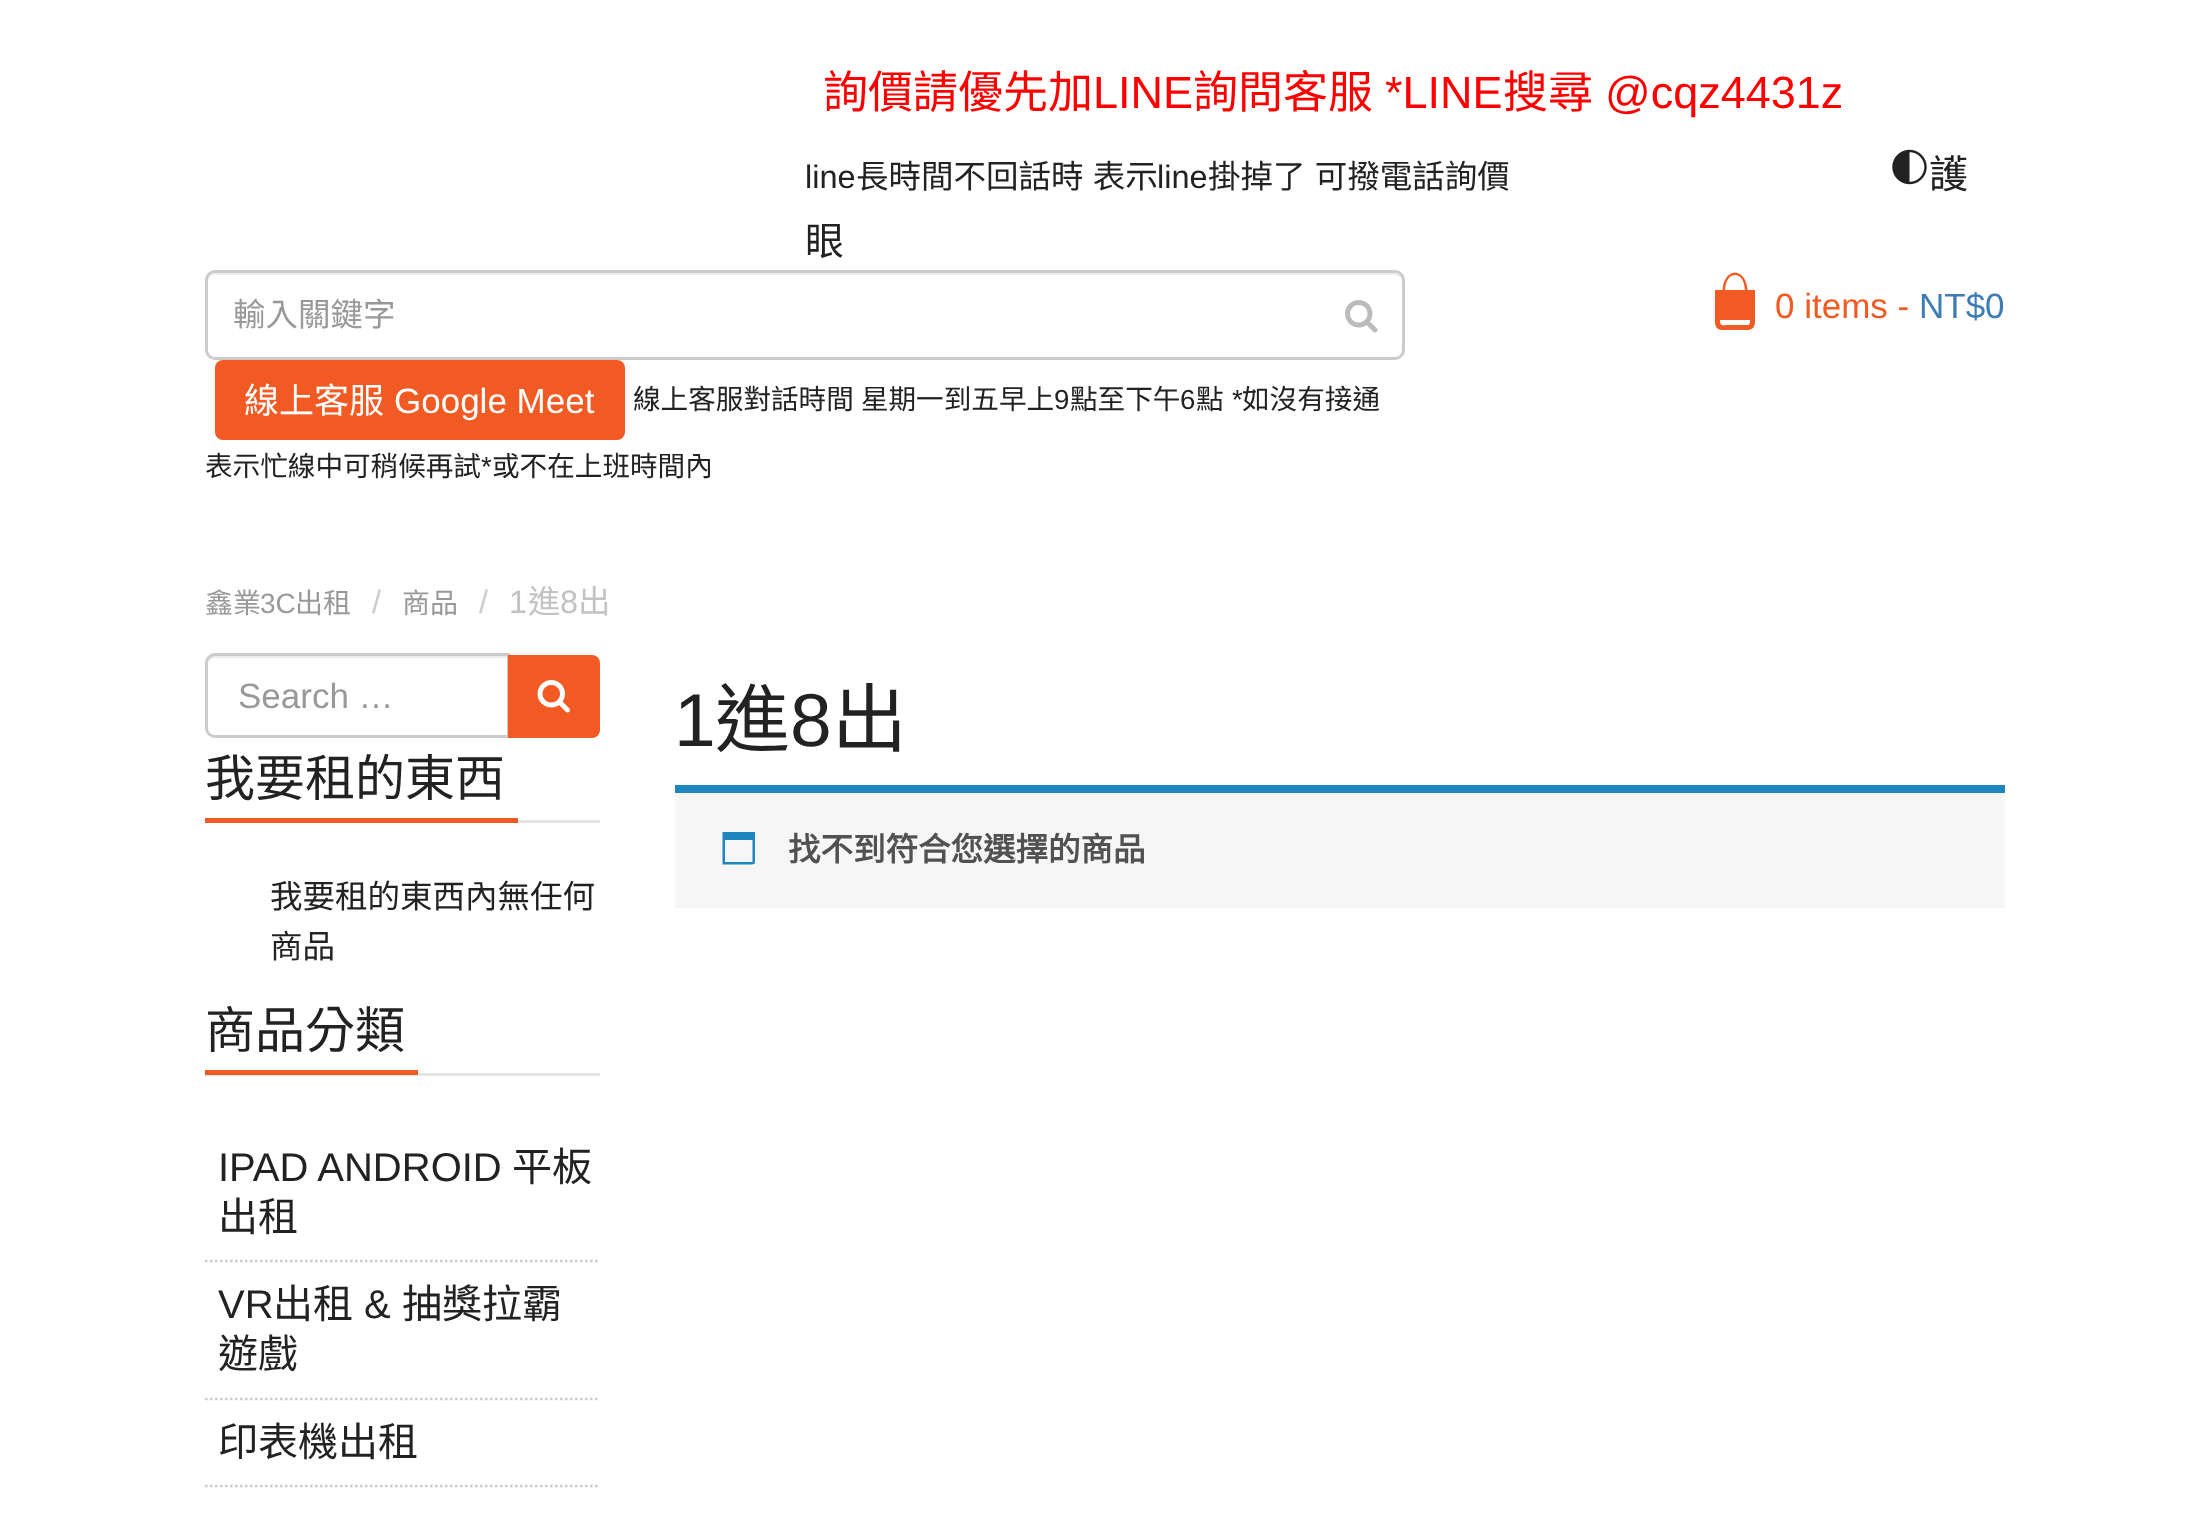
<!DOCTYPE html>
<meta charset="utf-8">
<style>body { margin: 0 } canvas { display: block }</style>
<canvas id="canvas" width="2209" height="1515"></canvas>
<script type="module">
  const canvas = document.getElementById("canvas");
  const g = canvas.getContext("2d");
  g.miterLimit = 4;
  g.fontKerning = "normal";
  function drawText(s, x, y, [font, color]) {
    g.font = font;
    g.fillStyle = color;
    g.fillText(s, x, y);
  }
  function fillBox(x, y, w, h, color) {
    g.fillStyle = color;
    g.fillRect(x, y, w, h);
  }
  function fillRounded(x, y, w, h, r, color) {
    g.fillStyle = color;
    g.beginPath();
    g.roundRect(x, y, w, h, r);
    g.fill();
  }
  async function drawPicture(src, x, y, w, h) {
    const img = new Image();
    img.src = src;
    await img.decode();
    g.drawImage(img, x, y, w, h);
  }

  const s1 = ["45px Noto Sans CJK TC", "#FF0000"];
  const s2 = ["45px Liberation Sans", "#FF0000"];
  const s3 = ["32.5px Liberation Sans", "#222222"];
  const s4 = ["32.5px Noto Sans CJK TC", "#222222"];
  const s5 = ["39px Noto Sans CJK TC", "#222222"];
  const s6 = ["32.5px Noto Sans CJK TC", "#999999"];
  const s7 = ["35px Noto Sans CJK TC", "#FFFFFF"];
  const s8 = ["35px Liberation Sans", "#FFFFFF"];
  const s9 = ["27.6px Noto Sans CJK TC", "#222222"];
  const s10 = ["27.6px Liberation Sans", "#222222"];
  const s11 = ["35px Liberation Sans", "#F15A23"];
  const s12 = ["35px Liberation Sans", "#3E7CB4"];
  const s13 = ["28px Noto Sans CJK TC", "#999999"];
  const s14 = ["28px Liberation Sans", "#999999"];
  const s15 = ["32.5px Liberation Sans", "#CCCCCC"];
  const s16 = ["32.5px Liberation Sans", "#C2C2C2"];
  const s17 = ["32.5px Noto Sans CJK TC", "#C2C2C2"];
  const s18 = ["35px Liberation Sans", "#999999"];
  const s19 = ["50px Noto Sans CJK TC", "#222222"];
  const s20 = ["40px Liberation Sans", "#222222"];
  const s21 = ["40px Noto Sans CJK TC", "#222222"];
  const s22 = ["75px Liberation Sans", "#222222"];
  const s23 = ["75px Noto Sans CJK TC", "#222222"];
  const s24 = ["bold 32.5px Noto Sans CJK TC", "#515151"];

  fillBox(0, 0, 2209, 1515, "#FFFFFF");
  drawText("詢價請優先加", 823, 108, s1);
  drawText("LINE", 1093, 108, s2);
  drawText("詢問客服", 1193, 108, s1);
  drawText("*LINE", 1385, 108, s2);
  drawText("搜尋", 1503, 108, s1);
  drawText("@cqz4431z", 1605, 108, s2);
  drawText("line", 805, 188, s3);
  g.wordSpacing = "2px";
  drawText("長時間不回話時 表示", 856, 188, s4);
  g.wordSpacing = "0px";
  drawText("line", 1157, 188, s3);
  g.wordSpacing = "2px";
  drawText("掛掉了 可撥電話詢價", 1208, 188, s4);
  await drawPicture("pic1.png", 1892, 149, 35, 36);
  g.wordSpacing = "0px";
  drawText("護", 1929, 188, s5);
  drawText("眼", 805, 255, s5);
  g.fillStyle = "#ECECEC";
  g.beginPath();
  g.moveTo(215, 275);
  g.lineTo(1395, 275);
  g.bezierCurveTo(1399, 275, 1402, 278, 1402, 282);
  g.lineTo(1402, 354);
  g.bezierCurveTo(1403, 353, 1403, 352, 1403, 350);
  g.lineTo(1403, 281);
  g.bezierCurveTo(1403, 277, 1399, 273, 1395, 273);
  g.lineTo(216, 273);
  g.bezierCurveTo(212, 273, 208, 277, 208, 281);
  g.lineTo(208, 282);
  g.bezierCurveTo(208, 278, 211, 275, 215, 275);
  g.closePath();
  g.fill();
  g.beginPath();
  g.roundRect(206.5, 271.5, 1197, 87, 8.5);
  g.strokeStyle = "#CCCCCC";
  g.lineWidth = 3;
  g.stroke();
  drawText("輸入關鍵字", 233, 326, s6);
  await drawPicture("pic2.png", 1345, 300, 33, 33);
  fillRounded(215, 360, 410, 80, 8, "#F15A23");
  drawText("線上客服", 244, 413, s7);
  drawText("Google Meet", 394, 413, s8);
  g.wordSpacing = "1px";
  drawText("線上客服對話時間 星期一到五早上", 633, 409, s9);
  g.wordSpacing = "0px";
  drawText("9", 1054, 409, s10);
  drawText("點至下午", 1070, 409, s9);
  drawText("6", 1180, 409, s10);
  drawText("點", 1196, 409, s9);
  drawText("*", 1232, 409, s10);
  drawText("如沒有接通", 1242, 409, s9);
  drawText("表示忙線中可稍候再試", 205, 476, s9);
  drawText("*", 481, 476, s10);
  drawText("或不在上班時間內", 492, 476, s9);
  fillBox(1715, 290, 40, 30, "#F15A23");
  g.beginPath();
  g.moveTo(1735, 272.5);
  g.bezierCurveTo(1742, 272.5, 1747.5, 281, 1747.5, 291);
  g.bezierCurveTo(1747.5, 301.5, 1742, 310, 1735, 310);
  g.bezierCurveTo(1728, 310, 1722.5, 301.5, 1722.5, 291);
  g.bezierCurveTo(1722.5, 281, 1728, 272.5, 1735, 272.5);
  g.closePath();
  g.moveTo(1735, 275);
  g.bezierCurveTo(1749, 275, 1747.5, 310, 1735, 310);
  g.bezierCurveTo(1722.5, 310, 1721, 275, 1735, 275);
  g.closePath();
  g.fill("evenodd");
  g.beginPath();
  g.moveTo(1722, 308);
  g.lineTo(1748, 308);
  g.bezierCurveTo(1752, 308, 1755, 311, 1755, 315);
  g.lineTo(1755, 322);
  g.bezierCurveTo(1755, 327, 1752, 330, 1748, 330);
  g.lineTo(1722, 330);
  g.bezierCurveTo(1718, 330, 1715, 327, 1715, 322);
  g.lineTo(1715, 315);
  g.bezierCurveTo(1715, 311, 1718, 308, 1722, 308);
  g.closePath();
  g.moveTo(1722, 308);
  g.lineTo(1739, 308);
  g.bezierCurveTo(1748, 308, 1750, 306, 1750, 315);
  g.bezierCurveTo(1750, 317, 1751, 325, 1748, 325);
  g.lineTo(1731, 325);
  g.bezierCurveTo(1721, 325, 1720, 327, 1720, 318);
  g.bezierCurveTo(1720, 316, 1720, 308, 1722, 308);
  g.closePath();
  g.fill("evenodd");
  drawText("0 items -", 1775, 318, s11);
  drawText("NT$0", 1919, 318, s12);
  drawText("鑫業", 205, 613, s13);
  drawText("3C", 260, 613, s14);
  drawText("出租", 295, 613, s13);
  drawText("/", 372, 613, s15);
  drawText("商品", 402, 613, s13);
  drawText("/", 479, 613, s15);
  drawText("1", 509, 613, s16);
  drawText("進", 528, 613, s17);
  drawText("8", 560, 613, s16);
  drawText("出", 578, 613, s17);
  g.fillStyle = "#ECECEC";
  g.beginPath();
  g.moveTo(215, 658);
  g.lineTo(508, 658);
  g.lineTo(508, 655);
  g.lineTo(216, 655);
  g.bezierCurveTo(210, 655, 208, 660, 208, 665);
  g.bezierCurveTo(208, 661, 211, 658, 215, 658);
  g.closePath();
  g.fill();
  g.beginPath();
  g.roundRect(206.5, 654.5, 302, 82, [8.5, 0, 0, 8.5]);
  g.stroke();
  drawText("Search …", 238, 708, s18);
  g.fillStyle = "#F15A23";
  g.beginPath();
  g.roundRect(508, 655, 92, 83, [0, 8, 8, 0]);
  g.fill();
  await drawPicture("pic3.png", 537, 680, 33, 33);
  fillBox(518, 820, 82, 3, "#E5E5E5");
  fillBox(205, 818, 313, 5, "#F15A23");
  drawText("我要租的東西", 205, 796, s19);
  drawText("我要租的東西內無任何", 270, 908, s4);
  drawText("商品", 270, 958, s4);
  fillBox(205, 1073, 395, 3, "#E5E5E5");
  fillBox(205, 1070, 213, 5, "#F15A23");
  drawText("商品分類", 205, 1048, s19);
  drawText("IPAD ANDROID", 218, 1181, s20);
  drawText("平板", 512, 1181, s21);
  drawText("出租", 218, 1231, s21);
  g.beginPath();
  g.moveTo(205, 1261);
  g.lineTo(600, 1261);
  g.lineWidth = 2.5;
  g.setLineDash([2.5, 2.5]);
  g.stroke();
  drawText("VR", 218, 1318, s20);
  drawText("出租", 273, 1318, s21);
  drawText("&", 364, 1318, s20);
  drawText("抽獎拉霸", 402, 1318, s21);
  drawText("遊戲", 218, 1368, s21);
  g.beginPath();
  g.moveTo(205, 1399);
  g.lineTo(600, 1399);
  g.stroke();
  drawText("印表機出租", 218, 1456, s21);
  g.beginPath();
  g.moveTo(205, 1486);
  g.lineTo(600, 1486);
  g.stroke();
  drawText("1", 674, 746, s22);
  drawText("進", 715, 746, s23);
  drawText("8", 790, 746, s22);
  drawText("出", 832, 746, s23);
  fillBox(675, 793, 1330, 115, "#F7F6F7");
  fillBox(675, 785, 1330, 8, "#1E85BE");
  g.beginPath();
  g.moveTo(752.5, 840);
  g.lineTo(725, 840);
  g.lineTo(725, 862);
  g.lineTo(752.5, 862);
  g.closePath();
  g.moveTo(755, 832);
  g.lineTo(755, 857);
  g.bezierCurveTo(755, 865, 755.5, 864.5, 747.5, 864.5);
  g.lineTo(722.5, 864.5);
  g.lineTo(722.5, 832);
  g.closePath();
  g.fill();
  drawText("找不到符合您選擇的商品", 788, 861, s24);
</script>
